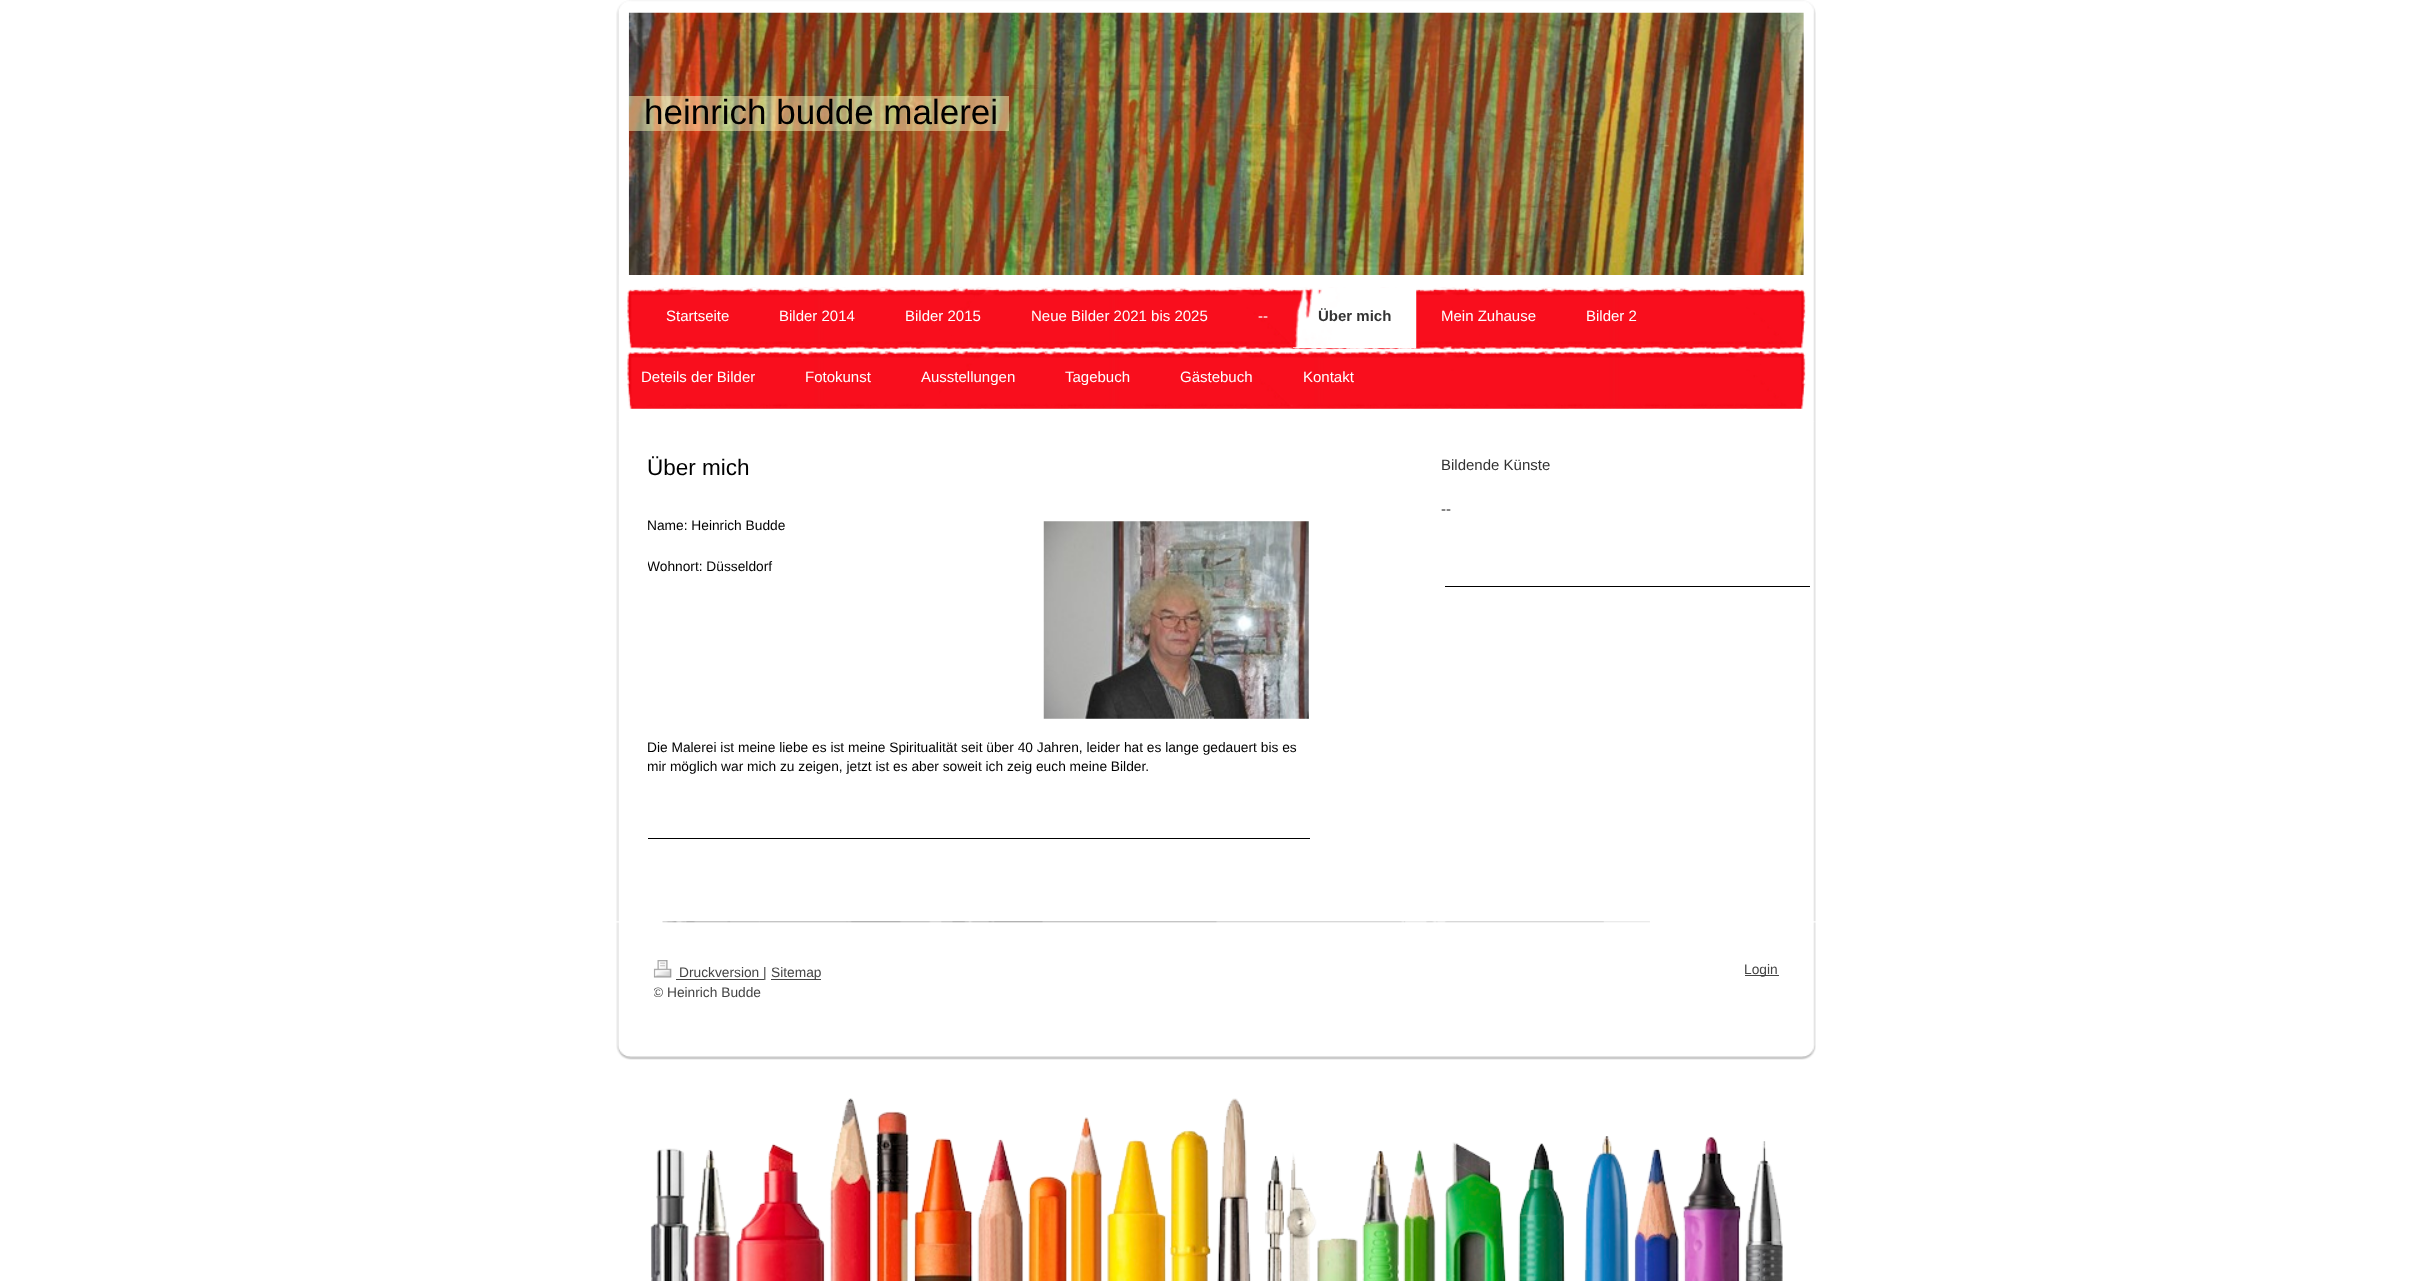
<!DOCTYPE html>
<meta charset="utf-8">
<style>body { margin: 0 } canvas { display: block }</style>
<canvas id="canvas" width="2431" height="1281"></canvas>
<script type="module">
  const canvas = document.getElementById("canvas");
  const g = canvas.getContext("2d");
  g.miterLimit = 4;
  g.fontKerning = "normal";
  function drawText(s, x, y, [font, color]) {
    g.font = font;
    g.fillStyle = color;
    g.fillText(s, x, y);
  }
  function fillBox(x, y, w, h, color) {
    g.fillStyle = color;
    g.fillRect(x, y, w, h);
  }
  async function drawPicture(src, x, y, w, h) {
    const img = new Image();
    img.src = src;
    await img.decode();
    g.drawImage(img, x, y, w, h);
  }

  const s1 = ["35px Liberation Sans", "#000000"];
  const s2 = ["15px Liberation Sans", "#FFFFFF"];
  const s3 = ["bold 15px Liberation Sans", "#333333"];
  const s4 = ["22.5px Liberation Sans", "#000000"];
  const s5 = ["13.75px Liberation Sans", "#000000"];
  const s6 = ["15px Liberation Sans", "#333333"];
  const s7 = ["13.75px Liberation Sans", "#444444"];

  fillBox(0, 0, 2431, 1281, "#FFFFFF");
  await drawPicture("pic1.png", 616, 0, 1200, 275);
  fillBox(1803, 13, 1, 262, "#EEEEEE");
  await drawPicture("pic2.png", 628, 12, 1176, 263);
  fillBox(629, 96, 380, 35, "rgba(251, 249, 190, 0.5)");
  drawText("heinrich budde malerei", 644, 124, s1);
  await drawPicture("pic6.png", 616, 421, 1200, 501);
  await drawPicture("pic3.png", 616, 275, 1200, 147);
  await drawPicture("pic4.png", 627, 287, 1179, 122);
  drawText("Startseite", 666, 321, s2);
  drawText("Bilder 2014", 779, 321, s2);
  drawText("Bilder 2015", 905, 321, s2);
  drawText("Neue Bilder 2021 bis 2025", 1031, 321, s2);
  drawText("--", 1258, 321, s2);
  fillBox(1293, 347, 123, 1, "#FFFFFF");
  await drawPicture("pic5.png", 1292, 287, 125, 61);
  drawText("Über mich", 1318, 321, s3);
  drawText("Mein Zuhause", 1441, 321, s2);
  drawText("Bilder 2", 1586, 321, s2);
  drawText("Deteils der Bilder", 641, 382, s2);
  drawText("Fotokunst", 805, 382, s2);
  drawText("Ausstellungen", 921, 382, s2);
  drawText("Tagebuch", 1065, 382, s2);
  drawText("Gästebuch", 1180, 382, s2);
  drawText("Kontakt", 1303, 382, s2);
  drawText("Über mich", 647, 475, s4);
  drawText("Name: Heinrich Budde", 647, 530, s5);
  g.save();
  g.beginPath();
  g.rect(648, 516, 662, 302);
  g.clip();
  drawText("Wohnort: Düsseldorf", 647, 571, s5);
  g.restore();
  drawText("Die Malerei ist meine liebe es ist meine Spiritualität seit über 40 Jahren, leider hat es lange gedauert bis es", 647, 752, s5);
  g.save();
  g.beginPath();
  g.rect(648, 516, 662, 302);
  g.clip();
  drawText("mir möglich war mich zu zeigen, jetzt ist es aber soweit ich zeig euch meine Bilder.", 647, 771, s5);
  g.restore();
  await drawPicture("pic7.png", 1043, 521, 266, 198);
  fillBox(648, 838, 662, 1, "#000000");
  drawText("Bildende Künste", 1441, 470, s6);
  drawText("--", 1441, 514, s6);
  fillBox(1445, 586, 365, 1, "#000000");
  await drawPicture("pic8.png", 650, 1098, 1133, 183);
  await drawPicture("pic9.png", 662, 921, 988, 2);
  await drawPicture("pic10.png", 616, 922, 1200, 118);
  await drawPicture("pic11.png", 653, 960, 19, 18);
  fillBox(676, 979, 88, 1, "#444444");
  drawText("Druckversion |", 679, 977, s7);
  fillBox(771, 979, 50, 1, "#444444");
  drawText("Sitemap", 771, 977, s7);
  g.save();
  g.beginPath();
  g.rect(654, 960, 1125, 43);
  g.clip();
  drawText("© Heinrich Budde", 653, 997, s7);
  g.restore();
  fillBox(1745, 975, 34, 1, "#444444");
  drawText("Login", 1744, 974, s7);
  await drawPicture("pic12.png", 616, 1040, 1200, 20);
</script>
